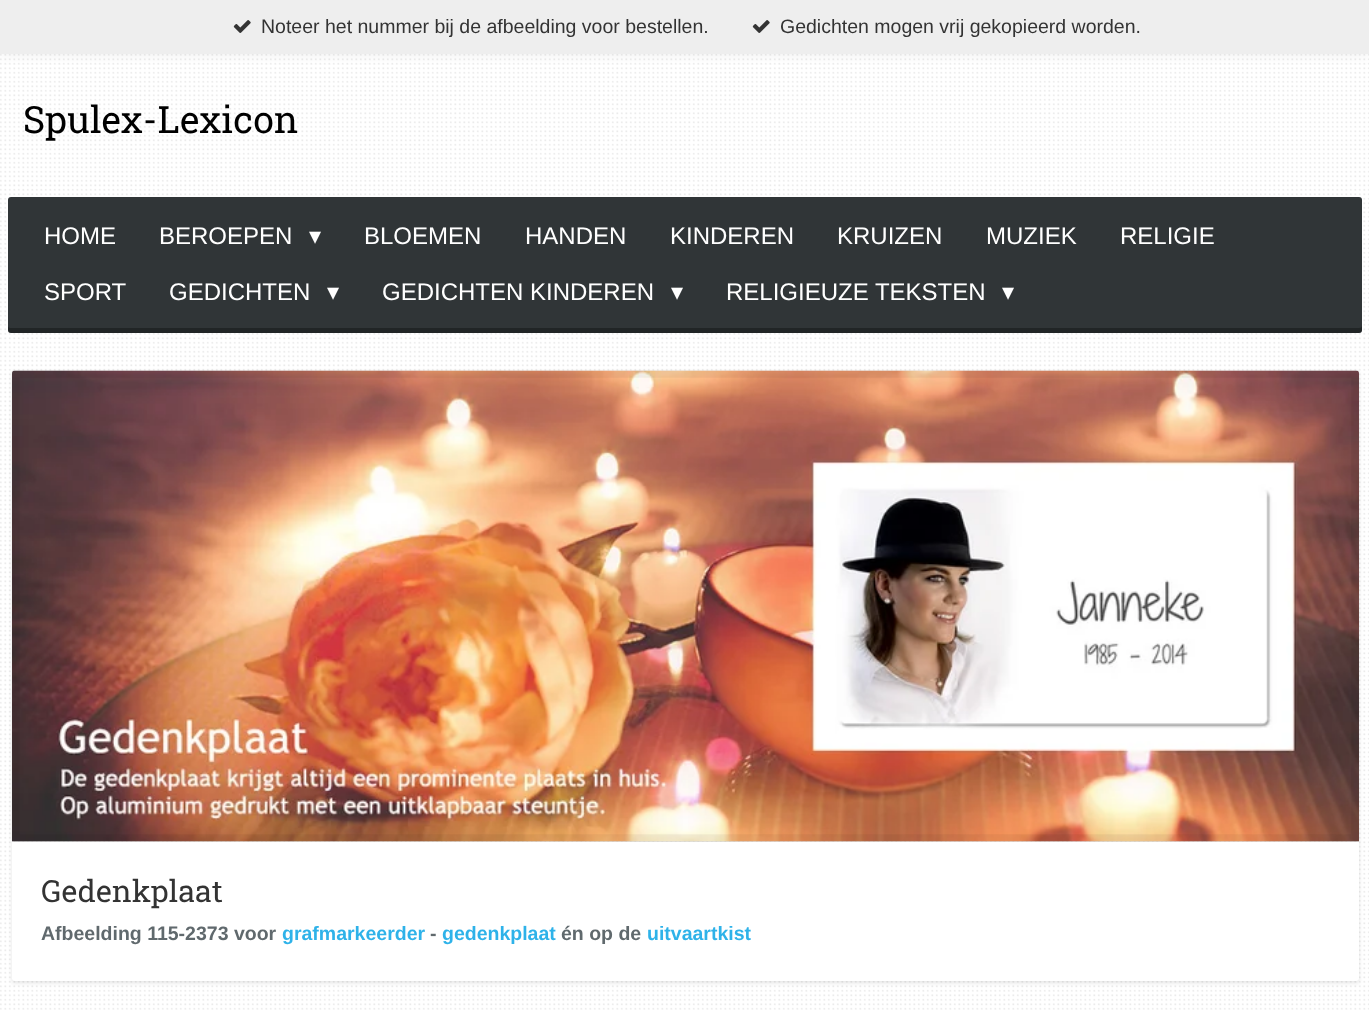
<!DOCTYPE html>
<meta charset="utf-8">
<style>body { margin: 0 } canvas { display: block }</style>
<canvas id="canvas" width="1369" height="1010"></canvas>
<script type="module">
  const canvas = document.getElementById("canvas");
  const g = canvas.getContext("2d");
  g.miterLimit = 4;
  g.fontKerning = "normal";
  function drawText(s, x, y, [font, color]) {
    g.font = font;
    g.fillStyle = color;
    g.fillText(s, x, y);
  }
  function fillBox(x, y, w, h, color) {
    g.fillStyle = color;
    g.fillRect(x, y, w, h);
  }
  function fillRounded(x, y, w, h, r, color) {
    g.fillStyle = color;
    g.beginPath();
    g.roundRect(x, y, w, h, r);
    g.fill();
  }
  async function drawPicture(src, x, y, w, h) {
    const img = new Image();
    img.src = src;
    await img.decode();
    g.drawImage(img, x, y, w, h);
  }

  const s1 = ["19.5px Liberation Sans", "#333333"];
  const s2 = ["37.5px Roboto Slab", "#000000"];
  const s3 = ["24px Liberation Sans", "#FFFFFF"];
  const s4 = ["24px DejaVu Sans", "#FFFFFF"];
  const s5 = ["30.5px Roboto Slab", "#333333"];
  const s6 = ["bold 19.5px Liberation Sans", "#60696D"];
  const s7 = ["bold 19.5px Liberation Sans", "#2EB2E9"];

  fillBox(0, 0, 1369, 1010, "#FFFFFF");
  await drawPicture("pic3.png", 0, 54, 1369, 956);
  g.fillStyle = "rgba(0, 0, 0, 0.1)";
  g.filter = "blur(7.5px)";
  g.beginPath();
  g.rect(0, -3, 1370, 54);
  g.fill();
  g.filter = "none";
  fillBox(0, 0, 1369, 54, "#EEEEEE");
  await drawPicture("pic1.png", 233, 20, 18, 13);
  drawText("Noteer het nummer bij de afbeelding voor bestellen.", 261, 33, s1);
  await drawPicture("pic1.png", 752, 20, 18, 13);
  drawText("Gedichten mogen vrij gekopieerd worden.", 780, 33, s1);
  drawText("Spulex-Lexicon", 23, 133, s2);
  fillRounded(8, 197, 1354, 136, 3, "#303537");
  g.fillStyle = "rgba(0, 0, 0, 0.3)";
  g.beginPath();
  g.moveTo(8, 326);
  g.lineTo(8, 330);
  g.bezierCurveTo(8, 332, 9, 333, 11, 333);
  g.lineTo(1359, 333);
  g.bezierCurveTo(1361, 333, 1362, 332, 1362, 330);
  g.lineTo(1362, 326);
  g.bezierCurveTo(1362, 327, 1361, 328, 1359, 328);
  g.lineTo(10, 328);
  g.bezierCurveTo(9, 328, 8, 327, 8, 326);
  g.closePath();
  g.fill();
  drawText("HOME", 44, 244, s3);
  drawText("BEROEPEN", 159, 244, s3);
  drawText("▾", 309, 244, s4);
  drawText("BLOEMEN", 364, 244, s3);
  drawText("HANDEN", 525, 244, s3);
  drawText("KINDEREN", 670, 244, s3);
  drawText("KRUIZEN", 837, 244, s3);
  drawText("MUZIEK", 986, 244, s3);
  drawText("RELIGIE", 1120, 244, s3);
  drawText("SPORT", 44, 300, s3);
  drawText("GEDICHTEN", 169, 300, s3);
  drawText("▾", 327, 300, s4);
  drawText("GEDICHTEN KINDEREN", 382, 300, s3);
  drawText("▾", 671, 300, s4);
  drawText("RELIGIEUZE TEKSTEN", 726, 300, s3);
  drawText("▾", 1002, 300, s4);
  g.fillStyle = "rgba(0, 0, 0, 0.1)";
  g.filter = "blur(2px)";
  g.beginPath();
  g.rect(12, 372, 1347, 611);
  g.fill();
  g.filter = "none";
  await drawPicture("pic2.png", 12, 370, 1347, 472);
  g.beginPath();
  g.moveTo(16, 374);
  g.lineTo(1355, 374);
  g.lineTo(1355, 838);
  g.lineTo(16, 838);
  g.closePath();
  g.strokeStyle = "rgba(0, 0, 0, 0.05)";
  g.lineWidth = 7.5;
  g.stroke();
  g.fillStyle = "#FFFFFF";
  g.beginPath();
  g.roundRect(12, 842, 1347, 139, [0, 0, 3, 3]);
  g.fill();
  drawText("Gedenkplaat", 41, 902, s5);
  drawText("Afbeelding 115-2373 voor", 41, 940, s6);
  drawText("grafmarkeerder", 282, 940, s7);
  drawText("-", 430, 940, s6);
  drawText("gedenkplaat", 442, 940, s7);
  drawText("én op de", 561, 940, s6);
  drawText("uitvaartkist", 647, 940, s7);
</script>
